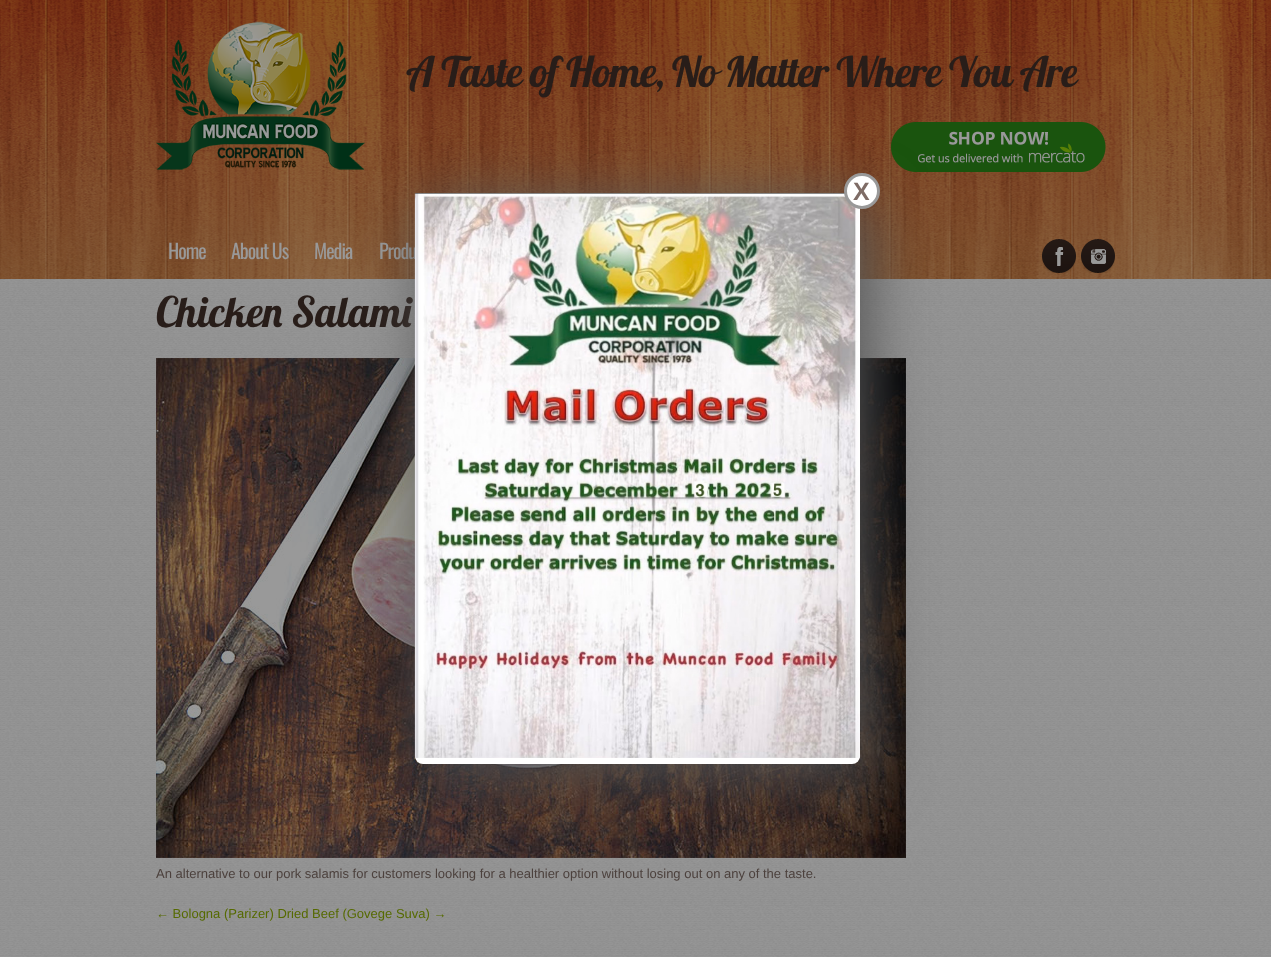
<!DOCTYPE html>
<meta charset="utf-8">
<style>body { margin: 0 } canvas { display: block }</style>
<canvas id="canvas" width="1271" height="957"></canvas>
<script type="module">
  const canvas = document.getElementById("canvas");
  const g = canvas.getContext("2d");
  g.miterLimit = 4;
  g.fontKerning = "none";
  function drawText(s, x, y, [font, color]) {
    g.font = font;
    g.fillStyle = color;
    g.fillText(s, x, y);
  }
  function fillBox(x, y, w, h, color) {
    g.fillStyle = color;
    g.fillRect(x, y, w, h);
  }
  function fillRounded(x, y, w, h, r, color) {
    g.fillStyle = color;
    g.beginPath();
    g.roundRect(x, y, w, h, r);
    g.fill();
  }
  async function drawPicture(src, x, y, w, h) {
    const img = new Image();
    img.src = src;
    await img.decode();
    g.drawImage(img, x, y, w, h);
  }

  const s1 = ["42px Lobster", "#281D19"];
  const s2 = ["20px Oswald", "#999999"];
  const s3 = ["13px Liberation Sans", "#4C413D"];
  const s4 = ["13px Liberation Sans", "#566A00"];
  const s5 = ["bold 25px Liberation Sans", "#7E6C66"];

  fillBox(0, 0, 1271, 957, "#FFFFFF");
  await drawPicture("pic1.png", 0, 279, 1271, 678);
  await drawPicture("pic2.png", 0, 0, 1271, 279);
  await drawPicture("pic3.png", 156, 21, 209, 149);
  g.letterSpacing = "-1px";
  drawText("A Taste of Home, No Matter Where You Are", 406, 87, s1);
  await drawPicture("pic4.png", 891, 122, 215, 50);
  drawText("Home", 168, 259, s2);
  drawText("About Us", 231, 259, s2);
  drawText("Media", 314, 259, s2);
  drawText("Produ", 379, 259, s2);
  await drawPicture("pic5.png", 1042, 239, 34, 34);
  await drawPicture("pic6.png", 1081, 239, 34, 34);
  g.letterSpacing = "0px";
  drawText("Chicken Salami", 156, 327, s1);
  await drawPicture("pic7.png", 156, 358, 750, 500);
  drawText("An alternative to our pork salamis for customers looking for a healthier option without losing out on any of the taste.", 156, 878, s3);
  drawText("← Bologna (Parizer) Dried Beef (Govege Suva) →", 156, 918, s4);
  g.fillStyle = "#555555";
  g.filter = "blur(30px)";
  g.beginPath();
  g.roundRect(425, 203, 445, 571, 8);
  g.fill();
  g.filter = "none";
  fillRounded(415, 193, 445, 571, 8, "#FFFFFF");
  await drawPicture("pic8.png", 414, 193, 446, 565);
  g.beginPath();
  g.arc(862, 191, 16.5, 0, Math.PI * 2);
  g.fill();
  g.strokeStyle = "#999999";
  g.lineWidth = 3;
  g.stroke();
  drawText("X", 853, 200, s5);
</script>
